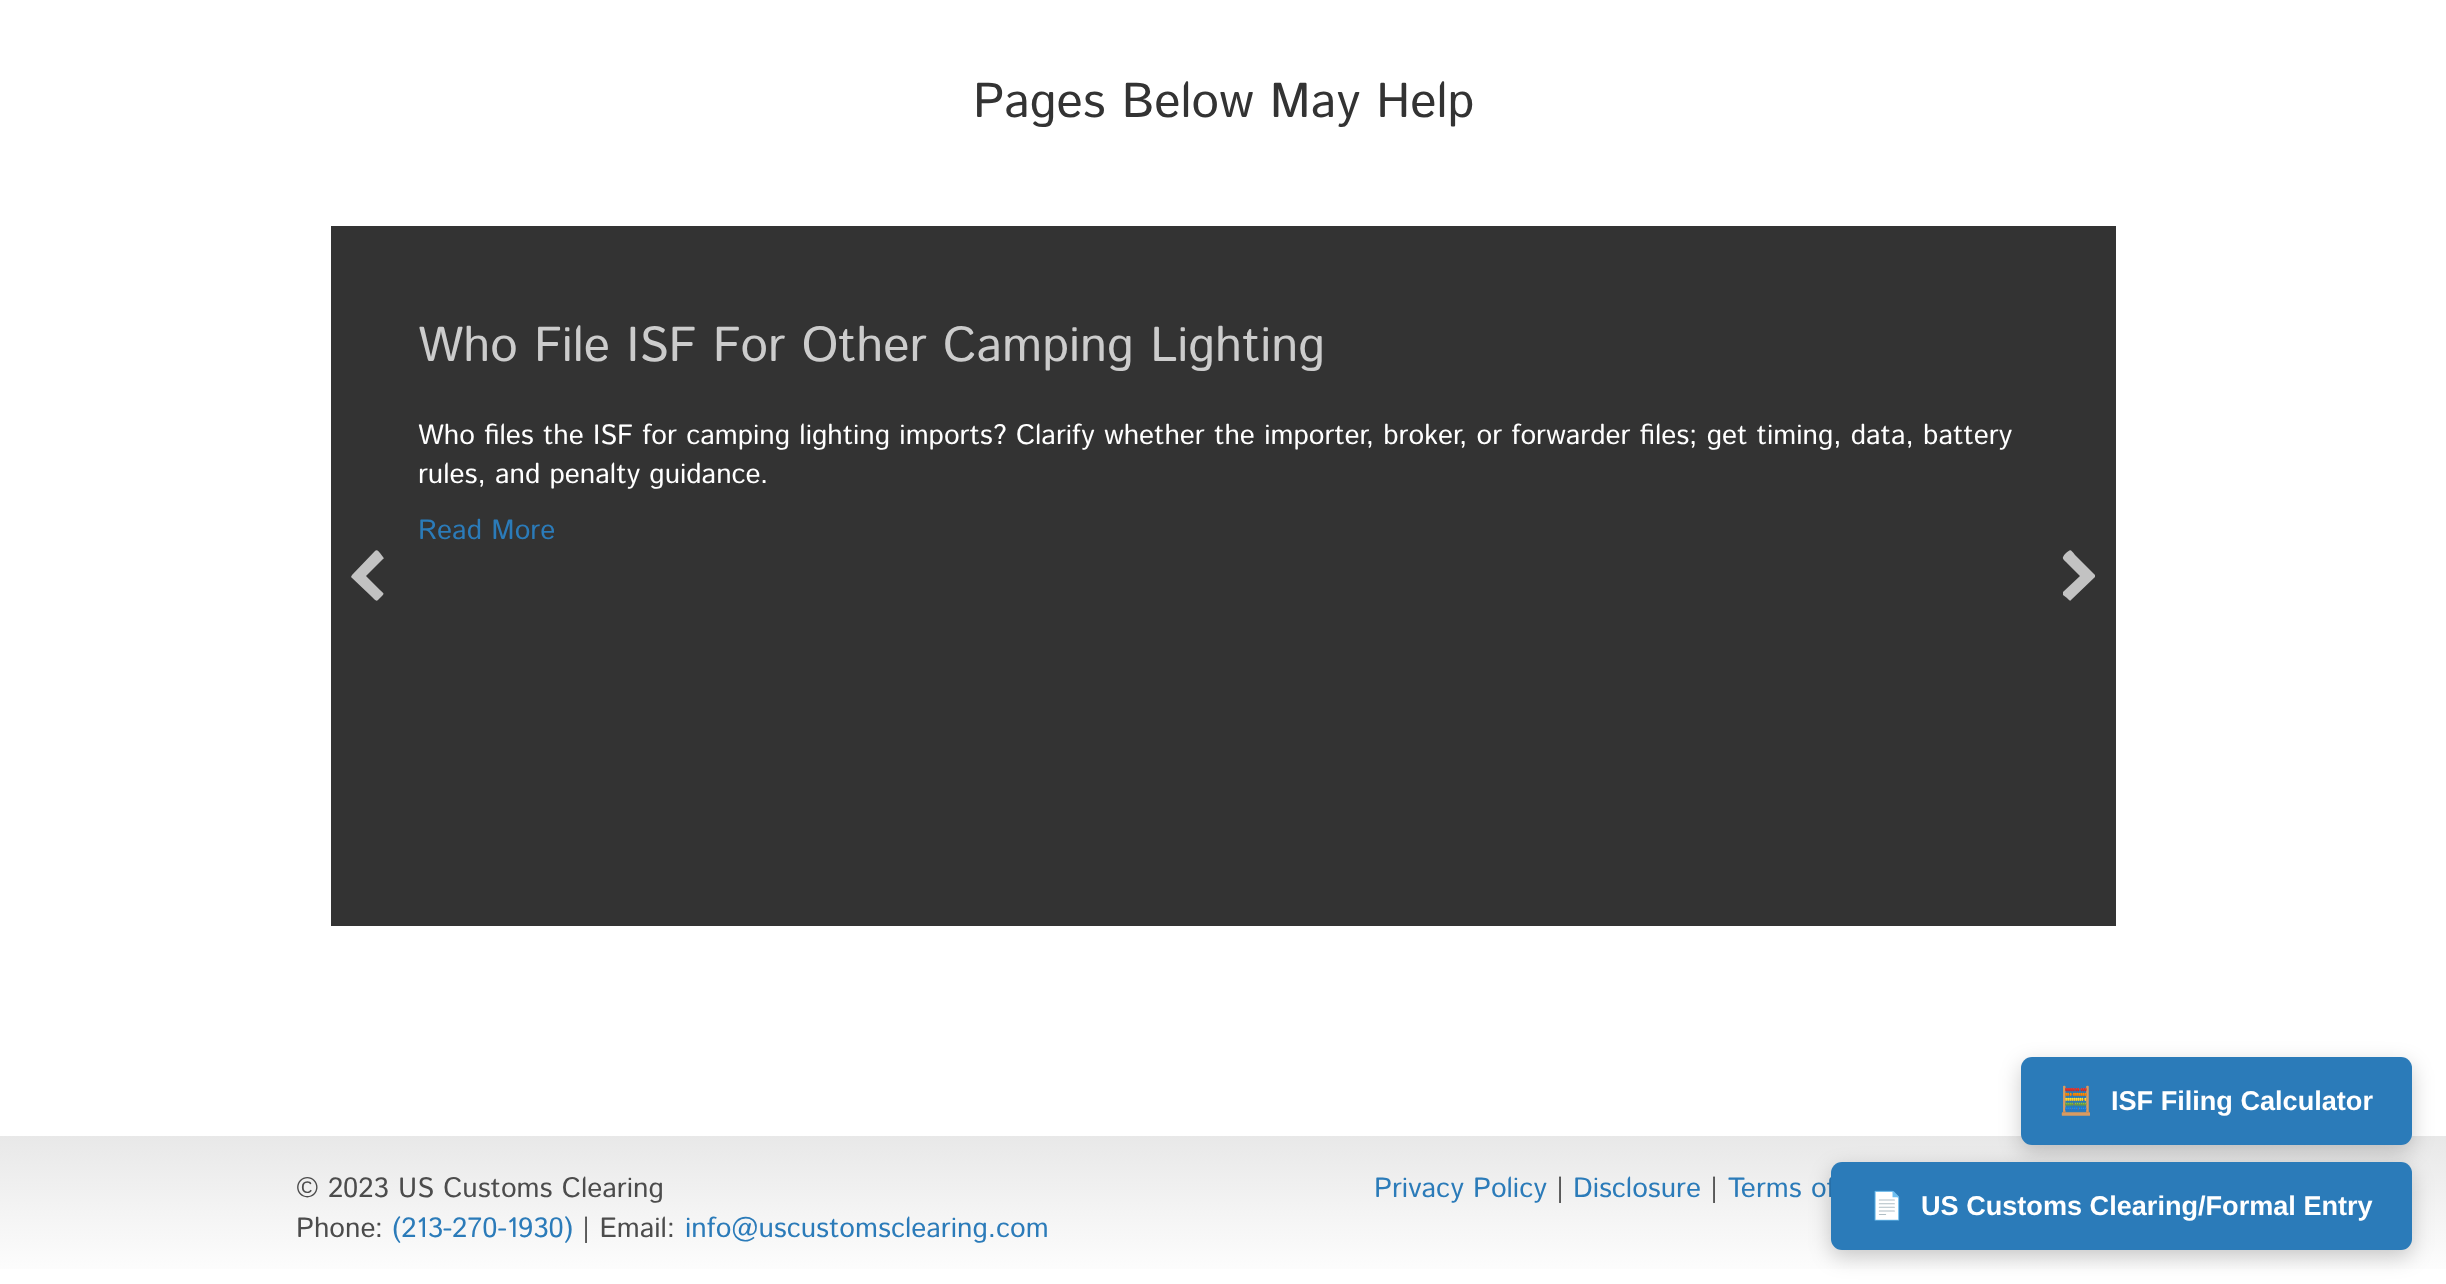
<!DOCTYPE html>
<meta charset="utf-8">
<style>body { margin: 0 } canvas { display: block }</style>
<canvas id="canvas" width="2446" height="1284"></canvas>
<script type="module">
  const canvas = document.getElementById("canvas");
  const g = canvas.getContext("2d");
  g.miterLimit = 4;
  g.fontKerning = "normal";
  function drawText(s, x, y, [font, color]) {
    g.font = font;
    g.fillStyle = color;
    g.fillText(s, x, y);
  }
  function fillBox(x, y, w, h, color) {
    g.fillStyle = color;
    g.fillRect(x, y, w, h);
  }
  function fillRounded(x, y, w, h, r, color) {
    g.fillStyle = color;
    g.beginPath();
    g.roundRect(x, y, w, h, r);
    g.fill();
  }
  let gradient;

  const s1 = ["49px Istok Web", "#333333"];
  const s2 = ["49px Istok Web", "#CCCCCC"];
  const s3 = ["28px Istok Web", "#FFFFFF"];
  const s4 = ["28px Istok Web", "#2B7BB9"];
  const s5 = ["28px Istok Web", "#4C4C4C"];
  const s6 = ["bold 27.1px Noto Color Emoji", "#FFFFFF"];
  const s7 = ["bold 27.1px Liberation Sans", "#FFFFFF"];

  fillBox(0, 0, 2446, 1284, "#FFFFFF");
  drawText("Pages Below May Help", 973, 117, s1);
  fillBox(331, 226, 1785, 700, "#333333");
  drawText("Who File ISF For Other Camping Lighting", 418, 361, s2);
  drawText("Who files the ISF for camping lighting imports? Clarify whether the importer, broker, or forwarder files; get timing, data, battery", 418, 444, s3);
  drawText("rules, and penalty guidance.", 418, 483, s3);
  drawText("Read More", 418, 539, s4);
  g.fillStyle = "#C2C2C2";
  g.beginPath();
  g.moveTo(383, 559);
  g.lineTo(366, 576);
  g.lineTo(380, 590);
  g.bezierCurveTo(384, 594, 385, 593, 381, 597);
  g.bezierCurveTo(376, 602, 377, 602, 371, 596);
  g.lineTo(351, 577);
  g.lineTo(352, 575);
  g.lineTo(375, 551);
  g.bezierCurveTo(377, 549, 379, 552, 380, 553);
  g.lineTo(383, 557);
  g.bezierCurveTo(384, 558, 384, 559, 383, 559);
  g.closePath();
  g.fill();
  g.beginPath();
  g.moveTo(2063, 592);
  g.lineTo(2080, 576);
  g.lineTo(2066, 562);
  g.bezierCurveTo(2062, 558, 2062, 558, 2065, 554);
  g.bezierCurveTo(2071, 549, 2070, 549, 2075, 555);
  g.lineTo(2095, 575);
  g.lineTo(2095, 577);
  g.lineTo(2071, 600);
  g.bezierCurveTo(2070, 602, 2068, 599, 2067, 598);
  g.lineTo(2063, 595);
  g.bezierCurveTo(2063, 594, 2063, 593, 2063, 592);
  g.closePath();
  g.fill();
  gradient = g.createLinearGradient(1223, 1136, 1223, 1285);
  gradient.addColorStop(0, "#E8E8E8");
  gradient.addColorStop(1, "#FFFFFF");
  g.fillStyle = gradient;
  g.fillRect(0, 1136, 2446, 133);
  drawText("© 2023 US Customs Clearing", 296, 1197, s5);
  drawText("Phone:", 296, 1237, s5);
  drawText("(213-270-1930)", 392, 1237, s4);
  drawText("| Email:", 582, 1237, s5);
  drawText("info@uscustomsclearing.com", 685, 1237, s4);
  drawText("Privacy Policy", 1374, 1197, s4);
  drawText("|", 1556, 1197, s5);
  drawText("Disclosure", 1573, 1197, s4);
  drawText("|", 1710, 1197, s5);
  drawText("Terms of", 1728, 1197, s4);
  g.fillStyle = "rgba(0, 0, 0, 0.2)";
  g.filter = "blur(10.5px)";
  g.beginPath();
  g.roundRect(2021, 1064, 391, 88, 11);
  g.fill();
  g.filter = "none";
  fillRounded(2021, 1057, 391, 88, 11, "#2B7BB9");
  drawText("🧮", 2059, 1110, s6);
  drawText("ISF Filing Calculator", 2111, 1110, s7);
  g.fillStyle = "rgba(0, 0, 0, 0.2)";
  g.filter = "blur(10.5px)";
  g.beginPath();
  g.roundRect(1831, 1169, 581, 88, 11);
  g.fill();
  g.filter = "none";
  fillRounded(1831, 1162, 581, 88, 11, "#2B7BB9");
  drawText("📄", 1870, 1215, s6);
  drawText("US Customs Clearing/Formal Entry", 1921, 1215, s7);
</script>
